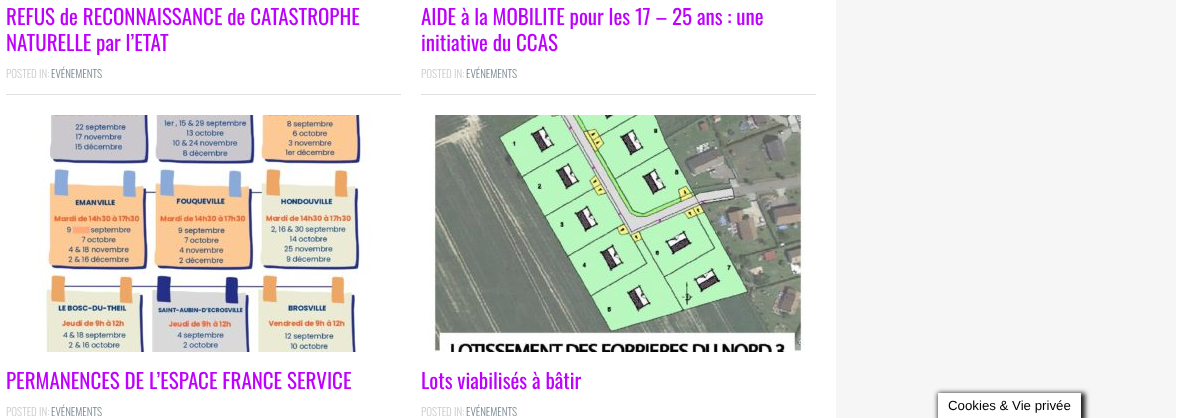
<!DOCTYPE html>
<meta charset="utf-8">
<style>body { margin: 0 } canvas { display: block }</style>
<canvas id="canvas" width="1181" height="418"></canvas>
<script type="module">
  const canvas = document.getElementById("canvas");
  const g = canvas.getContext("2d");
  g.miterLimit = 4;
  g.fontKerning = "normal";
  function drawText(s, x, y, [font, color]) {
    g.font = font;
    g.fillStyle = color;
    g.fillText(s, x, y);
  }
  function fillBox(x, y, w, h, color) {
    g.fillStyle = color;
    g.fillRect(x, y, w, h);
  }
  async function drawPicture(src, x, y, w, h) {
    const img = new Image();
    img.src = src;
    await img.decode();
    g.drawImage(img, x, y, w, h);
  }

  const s1 = ["21px Oswald", "#BF00FF"];
  const s2 = ["300 11px Oswald", "#CBCBCB"];
  const s3 = ["300 11px Oswald", "#798992"];
  const s4 = ["13.25px Liberation Sans", "#000000"];

  fillBox(0, 0, 1181, 418, "#FFFFFF");
  fillBox(6, 94, 395, 1, "#DFDFDF");
  drawText("REFUS de RECONNAISSANCE de CATASTROPHE", 6, 25, s1);
  drawText("NATURELLE par l’ETAT", 6, 51, s1);
  drawText("POSTED IN:", 6, 78, s2);
  drawText("EVÉNEMENTS", 51, 78, s3);
  fillBox(421, 94, 395, 1, "#DFDFDF");
  drawText("AIDE à la MOBILITE pour les 17 – 25 ans : une", 421, 25, s1);
  drawText("initiative du CCAS", 421, 51, s1);
  drawText("POSTED IN:", 421, 78, s2);
  drawText("EVÉNEMENTS", 466, 78, s3);
  await drawPicture("pic1.png", 38, 115, 334, 237);
  drawText("PERMANENCES DE L’ESPACE FRANCE SERVICE", 6, 389, s1);
  drawText("POSTED IN:", 6, 416, s2);
  drawText("EVÉNEMENTS", 51, 416, s3);
  await drawPicture("pic2.png", 429, 115, 376, 237);
  drawText("Lots viabilisés à bâtir", 421, 389, s1);
  drawText("POSTED IN:", 421, 416, s2);
  drawText("EVÉNEMENTS", 466, 416, s3);
  fillBox(836, 0, 340, 418, "#F6F6F6");
  g.fillStyle = "#161616";
  g.filter = "blur(2.5px)";
  g.beginPath();
  g.rect(938, 393, 147, 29);
  g.fill();
  g.filter = "none";
  fillBox(938, 393, 143, 25, "#FFFFFF");
  drawText("Cookies & Vie privée", 948, 410, s4);
</script>
